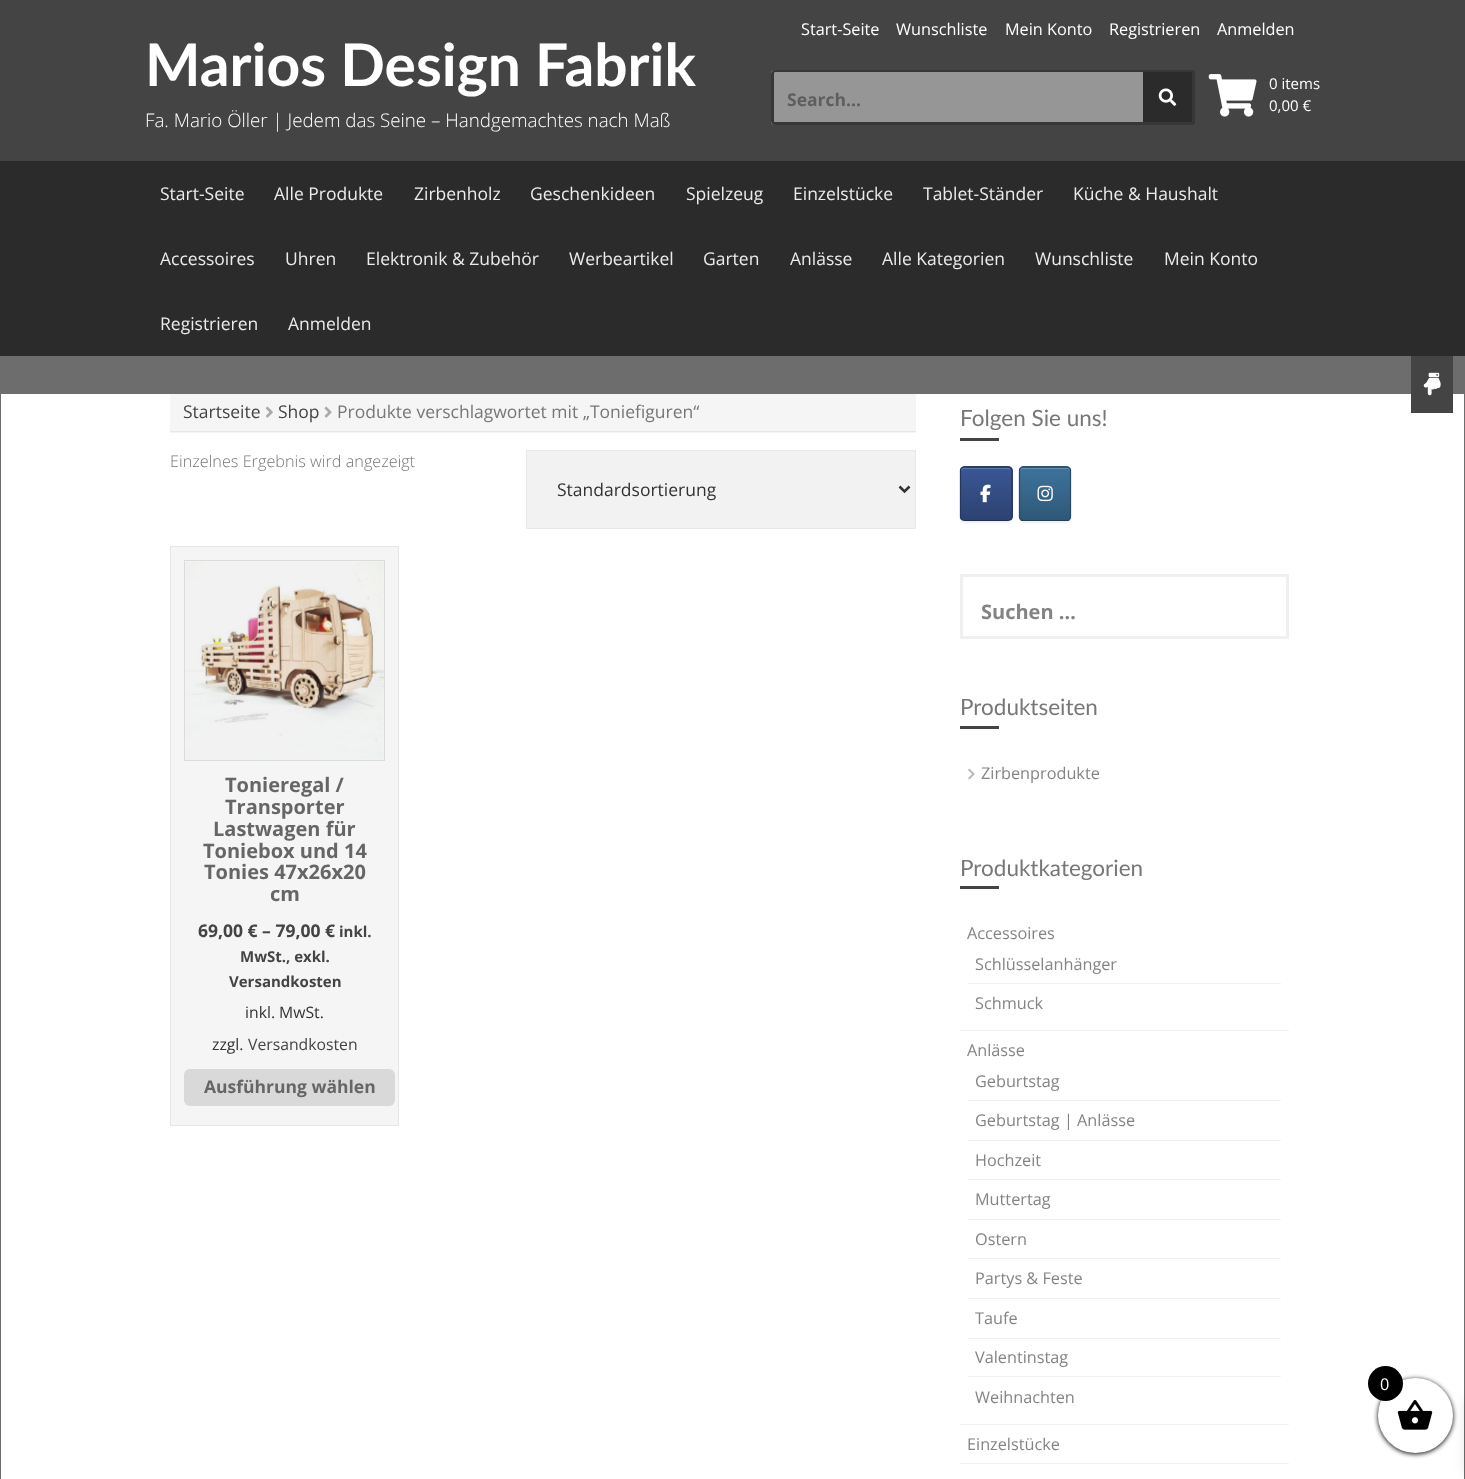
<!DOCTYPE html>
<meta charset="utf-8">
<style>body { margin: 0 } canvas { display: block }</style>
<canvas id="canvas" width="1465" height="1479"></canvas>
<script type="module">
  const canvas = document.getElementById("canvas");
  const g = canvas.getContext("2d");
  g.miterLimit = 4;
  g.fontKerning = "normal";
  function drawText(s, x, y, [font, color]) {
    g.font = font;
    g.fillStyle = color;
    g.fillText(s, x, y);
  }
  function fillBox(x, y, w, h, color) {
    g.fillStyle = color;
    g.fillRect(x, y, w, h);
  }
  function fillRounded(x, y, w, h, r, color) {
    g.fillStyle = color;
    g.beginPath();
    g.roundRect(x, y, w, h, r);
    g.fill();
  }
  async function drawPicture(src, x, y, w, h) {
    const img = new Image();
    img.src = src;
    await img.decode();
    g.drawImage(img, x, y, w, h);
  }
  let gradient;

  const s1 = ["16.25px Open Sans", "#FFFFFF"];
  const s2 = ["bold 58.75px Lato", "#FFFFFF"];
  const s3 = ["300 18.75px Open Sans", "#FFFFFF"];
  const s4 = ["bold 17.5px Open Sans", "#5E5E5E"];
  const s5 = ["15px Open Sans", "#FFFFFF"];
  const s6 = ["17.5px Open Sans", "#EBEBEB"];
  const s7 = ["17.5px Open Sans", "#444444"];
  const s8 = ["17.5px Open Sans", "#777777"];
  const s9 = ["300 16.25px Open Sans", "#777777"];
  const s10 = ["17.5px Open Sans", "#333333"];
  const s11 = ["bold 20px Open Sans", "#666666"];
  const s12 = ["bold 17.5px Open Sans", "#444444"];
  const s13 = ["bold 15px Open Sans", "#444444"];
  const s14 = ["15.75px Open Sans", "#333333"];
  const s15 = ["15.75px Open Sans", "#444444"];
  const s16 = ["bold 17.5px Open Sans", "#666666"];
  const s17 = ["22.5px Lato", "#777777"];
  const s18 = ["bold 20px Open Sans", "#848484"];
  const s19 = ["16.25px Open Sans", "#848484"];

  fillBox(0, 0, 1465, 1479, "#6D6D6D");
  fillBox(0, 0, 1465, 161, "#444444");
  drawText("Start-Seite", 801, 35, s1);
  drawText("Wunschliste", 896, 35, s1);
  drawText("Mein Konto", 1005, 35, s1);
  drawText("Registrieren", 1109, 35, s1);
  drawText("Anmelden", 1217, 35, s1);
  drawText("Marios Design Fabrik", 145, 86, s2);
  drawText("Fa. Mario Öller | Jedem das Seine – Handgemachtes nach Maß", 145, 127, s3);
  fillRounded(771, 70, 375, 55, 4, "#969696");
  g.fillStyle = "#373737";
  g.beginPath();
  g.moveTo(775, 70);
  g.lineTo(1142, 70);
  g.bezierCurveTo(1145, 70, 1146, 72, 1146, 74);
  g.lineTo(1146, 121);
  g.bezierCurveTo(1146, 123, 1145, 125, 1142, 125);
  g.lineTo(775, 125);
  g.bezierCurveTo(773, 125, 771, 123, 771, 121);
  g.lineTo(771, 74);
  g.bezierCurveTo(771, 72, 773, 70, 775, 70);
  g.closePath();
  g.moveTo(775, 72);
  g.lineTo(1142, 72);
  g.bezierCurveTo(1145, 72, 1146, 73, 1146, 74);
  g.lineTo(1146, 121);
  g.bezierCurveTo(1146, 122, 1145, 122, 1142, 122);
  g.lineTo(775, 122);
  g.bezierCurveTo(774, 122, 774, 122, 774, 121);
  g.lineTo(774, 74);
  g.bezierCurveTo(774, 73, 774, 72, 775, 72);
  g.closePath();
  g.fill("evenodd");
  drawText("Search...", 787, 106, s4);
  g.fillStyle = "#2B2B2B";
  g.beginPath();
  g.roundRect(1143, 70, 52, 55, [0, 4, 4, 0]);
  g.fill();
  g.fillStyle = "#373737";
  g.beginPath();
  g.moveTo(1142, 70);
  g.lineTo(1191, 70);
  g.bezierCurveTo(1193, 70, 1195, 72, 1195, 74);
  g.lineTo(1195, 121);
  g.bezierCurveTo(1195, 123, 1193, 125, 1191, 125);
  g.lineTo(1142, 125);
  g.closePath();
  g.moveTo(1142, 72);
  g.lineTo(1191, 72);
  g.bezierCurveTo(1192, 72, 1192, 73, 1192, 74);
  g.lineTo(1192, 121);
  g.bezierCurveTo(1192, 122, 1192, 122, 1191, 122);
  g.lineTo(1142, 122);
  g.closePath();
  g.fill("evenodd");
  await drawPicture("pic1.png", 1158, 88, 19, 18);
  await drawPicture("pic2.png", 1208, 74, 49, 43);
  drawText("0 items", 1269, 89, s5);
  drawText("0,00 €", 1269, 111, s5);
  fillBox(0, 161, 1465, 195, "#2B2B2B");
  drawText("Start-Seite", 160, 200, s6);
  drawText("Alle Produkte", 274, 200, s6);
  drawText("Zirbenholz", 414, 200, s6);
  drawText("Geschenkideen", 530, 200, s6);
  drawText("Spielzeug", 686, 200, s6);
  drawText("Einzelstücke", 793, 200, s6);
  drawText("Tablet-Ständer", 923, 200, s6);
  drawText("Küche & Haushalt", 1073, 200, s6);
  drawText("Accessoires", 160, 265, s6);
  drawText("Uhren", 285, 265, s6);
  drawText("Elektronik & Zubehör", 366, 265, s6);
  drawText("Werbeartikel", 569, 265, s6);
  drawText("Garten", 703, 265, s6);
  drawText("Anlässe", 790, 265, s6);
  drawText("Alle Kategorien", 882, 265, s6);
  drawText("Wunschliste", 1035, 265, s6);
  drawText("Mein Konto", 1164, 265, s6);
  drawText("Registrieren", 160, 330, s6);
  drawText("Anmelden", 288, 330, s6);
  fillBox(1, 394, 1463, 1085, "#FFFFFF");
  fillBox(1411, 356, 42, 57, "#444444");
  await drawPicture("pic3.png", 1423, 372, 18, 24);
  fillBox(170, 394, 746, 39, "#F5F5F5");
  fillBox(170, 431, 746, 1, "#E6E6E6");
  drawText("Startseite", 183, 418, s7);
  await drawPicture("pic4.png", 266, 406, 7, 12);
  drawText("Shop", 278, 418, s7);
  await drawPicture("pic5.png", 324, 406, 8, 12);
  drawText("Produkte verschlagwortet mit „Toniefiguren“", 337, 418, s8);
  drawText("Einzelnes Ergebnis wird angezeigt", 170, 467, s9);
  g.fillStyle = "#F2F2F2";
  g.beginPath();
  g.rect(526.5, 450.5, 389, 78);
  g.fill();
  g.strokeStyle = "#E8E8E8";
  g.stroke();
  g.beginPath();
  g.moveTo(899.5, 486.5);
  g.lineTo(904.5, 491.5);
  g.lineTo(909.5, 486.5);
  g.strokeStyle = "#333333";
  g.lineWidth = 2.5;
  g.stroke();
  drawText("Standardsortierung", 557, 496, s10);
  g.fillStyle = "#F5F5F5";
  g.beginPath();
  g.rect(170.5, 546.5, 228, 579);
  g.fill();
  g.strokeStyle = "#E6E6E6";
  g.lineWidth = 1;
  g.stroke();
  g.strokeStyle = "#DBDBDB";
  g.strokeRect(184.5, 560.5, 200, 200);
  await drawPicture("pic6.png", 185, 561, 199, 199);
  drawText("Tonieregal /", 225, 792, s11);
  drawText("Transporter", 225, 814, s11);
  drawText("Lastwagen für", 213, 836, s11);
  drawText("Toniebox und 14", 203, 858, s11);
  drawText("Tonies 47x26x20", 204, 879, s11);
  drawText("cm", 270, 901, s11);
  drawText("69,00 € – 79,00 €", 198, 937, s12);
  drawText("inkl.", 339, 937, s13);
  drawText("MwSt., exkl.", 240, 962, s13);
  drawText("Versandkosten", 229, 987, s13);
  drawText("inkl. MwSt.", 245, 1018, s14);
  drawText("zzgl.", 212, 1050, s14);
  drawText("Versandkosten", 248, 1050, s15);
  fillRounded(184, 1069, 211, 37, 6, "#D9D9D9");
  drawText("Ausführung wählen", 204, 1093, s16);
  drawText("Folgen Sie uns!", 960, 426, s17);
  fillBox(960, 438, 39, 3, "#444444");
  g.fillStyle = "rgba(0, 0, 0, 0.07)";
  g.filter = "blur(1px)";
  g.beginPath();
  g.roundRect(960, 468, 53, 55, 5);
  g.fill();
  g.filter = "none";
  g.save();
  g.beginPath();
  g.roundRect(960, 466, 53, 55, 5);
  g.clip();
  gradient = g.createLinearGradient(961, 468, 961, 415);
  gradient.addColorStop(0, "#2C4270");
  gradient.addColorStop(1, "#3A5795");
  g.fillStyle = gradient;
  g.fillRect(960, 466, 53, 2);
  gradient = g.createLinearGradient(961, 520, 961, 468);
  gradient.addColorStop(0, "#2C4270");
  gradient.addColorStop(1, "#3A5795");
  g.fillStyle = gradient;
  g.fillRect(960, 468, 53, 52);
  g.restore();
  g.fillStyle = "#6179AA";
  g.beginPath();
  g.moveTo(964, 469);
  g.lineTo(1008, 469);
  g.bezierCurveTo(1010, 469, 1011, 470, 1011, 472);
  g.bezierCurveTo(1011, 466, 1005, 468, 1001, 468);
  g.lineTo(971, 468);
  g.bezierCurveTo(967, 468, 961, 466, 961, 472);
  g.bezierCurveTo(961, 470, 963, 469, 964, 469);
  g.closePath();
  g.fill();
  g.beginPath();
  g.moveTo(961.5, 468);
  g.bezierCurveTo(962.5, 467.5, 963.5, 467, 964.5, 467);
  g.lineTo(1008, 467);
  g.bezierCurveTo(1009, 467, 1010, 467.5, 1011, 468);
  g.strokeStyle = "#273B65";
  g.lineWidth = 1.2;
  g.stroke();
  g.beginPath();
  g.moveTo(1011, 468);
  g.bezierCurveTo(1011.5, 468.5, 1012, 469.5, 1012, 470.5);
  g.lineTo(1012, 517);
  g.bezierCurveTo(1012, 518, 1011.5, 519, 1011, 519.5);
  g.strokeStyle = "#25375E";
  g.stroke();
  g.beginPath();
  g.moveTo(1011, 519.5);
  g.bezierCurveTo(1010, 520, 1009, 520.5, 1008, 520.5);
  g.lineTo(964.5, 520.5);
  g.bezierCurveTo(963.5, 520.5, 962.5, 520, 961.5, 519.5);
  g.strokeStyle = "#203053";
  g.stroke();
  g.beginPath();
  g.moveTo(961.5, 519.5);
  g.bezierCurveTo(961, 519, 960.5, 518, 960.5, 517);
  g.lineTo(960.5, 470.5);
  g.bezierCurveTo(960.5, 469.5, 961, 468.5, 961.5, 468);
  g.strokeStyle = "#25375E";
  g.stroke();
  await drawPicture("pic7.png", 980, 484, 11, 19);
  g.fillStyle = "rgba(0, 0, 0, 0.07)";
  g.filter = "blur(1px)";
  g.beginPath();
  g.roundRect(1019, 468, 52, 55, 5);
  g.fill();
  g.filter = "none";
  g.save();
  g.beginPath();
  g.roundRect(1019, 466, 52, 55, 5);
  g.clip();
  gradient = g.createLinearGradient(1020, 468, 1020, 415);
  gradient.addColorStop(0, "#2F5877");
  gradient.addColorStop(1, "#3D739C");
  g.fillStyle = gradient;
  g.fillRect(1019, 466, 52, 2);
  gradient = g.createLinearGradient(1020, 520, 1020, 468);
  gradient.addColorStop(0, "#2F5877");
  gradient.addColorStop(1, "#3D739C");
  g.fillStyle = gradient;
  g.fillRect(1019, 468, 52, 52);
  g.restore();
  g.fillStyle = "#648FB0";
  g.beginPath();
  g.moveTo(1023, 469);
  g.lineTo(1067, 469);
  g.bezierCurveTo(1069, 469, 1070, 470, 1070, 472);
  g.bezierCurveTo(1070, 466, 1064, 468, 1060, 468);
  g.lineTo(1030, 468);
  g.bezierCurveTo(1026, 468, 1020, 466, 1020, 472);
  g.bezierCurveTo(1020, 470, 1021, 469, 1023, 469);
  g.closePath();
  g.fill();
  g.beginPath();
  g.moveTo(1020.5, 468);
  g.bezierCurveTo(1021, 467.5, 1022, 467, 1023, 467);
  g.lineTo(1067, 467);
  g.bezierCurveTo(1068, 467, 1069, 467.5, 1069.5, 468);
  g.strokeStyle = "#2A506C";
  g.stroke();
  g.beginPath();
  g.moveTo(1069.5, 468);
  g.bezierCurveTo(1070, 468.5, 1070.5, 469.5, 1070.5, 470.5);
  g.lineTo(1070.5, 517);
  g.bezierCurveTo(1070.5, 518, 1070, 519, 1069.5, 519.5);
  g.strokeStyle = "#274A65";
  g.stroke();
  g.beginPath();
  g.moveTo(1069.5, 519.5);
  g.bezierCurveTo(1069, 520, 1068, 520.5, 1067, 520.5);
  g.lineTo(1023, 520.5);
  g.bezierCurveTo(1022, 520.5, 1021, 520, 1020.5, 519.5);
  g.strokeStyle = "#23425A";
  g.stroke();
  g.beginPath();
  g.moveTo(1020.5, 519.5);
  g.bezierCurveTo(1020, 519, 1019.5, 518, 1019.5, 517);
  g.lineTo(1019.5, 470.5);
  g.bezierCurveTo(1019.5, 469.5, 1020, 468.5, 1020.5, 468);
  g.strokeStyle = "#274A65";
  g.stroke();
  await drawPicture("pic8.png", 1037, 485, 16, 17);
  g.strokeStyle = "#F0F0F0";
  g.lineWidth = 3;
  g.strokeRect(961.5, 575.5, 326, 62);
  drawText("Suchen …", 981, 619, s18);
  drawText("Produktseiten", 960, 715, s17);
  fillBox(960, 726, 39, 3, "#444444");
  await drawPicture("pic9.png", 968, 768, 7, 12);
  drawText("Zirbenprodukte", 981, 779, s19);
  drawText("Produktkategorien", 960, 876, s17);
  fillBox(960, 886, 39, 3, "#444444");
  fillBox(960, 1030, 329, 1, "#F2F2F2");
  drawText("Accessoires", 967, 939, s19);
  fillBox(968, 983, 313, 1, "#F2F2F2");
  drawText("Schlüsselanhänger", 975, 970, s19);
  drawText("Schmuck", 975, 1009, s19);
  fillBox(960, 1424, 329, 1, "#F2F2F2");
  drawText("Anlässe", 967, 1056, s19);
  fillBox(968, 1100, 313, 1, "#F2F2F2");
  drawText("Geburtstag", 975, 1087, s19);
  fillBox(968, 1140, 313, 1, "#F2F2F2");
  drawText("Geburtstag | Anlässe", 975, 1126, s19);
  fillBox(968, 1179, 313, 1, "#F2F2F2");
  drawText("Hochzeit", 975, 1166, s19);
  fillBox(968, 1219, 313, 1, "#F2F2F2");
  drawText("Muttertag", 975, 1205, s19);
  fillBox(968, 1258, 313, 1, "#F2F2F2");
  drawText("Ostern", 975, 1245, s19);
  fillBox(968, 1298, 313, 1, "#F2F2F2");
  drawText("Partys & Feste", 975, 1284, s19);
  fillBox(968, 1338, 313, 1, "#F2F2F2");
  drawText("Taufe", 975, 1324, s19);
  fillBox(968, 1376, 313, 1, "#F2F2F2");
  drawText("Valentinstag", 975, 1363, s19);
  drawText("Weihnachten", 975, 1403, s19);
  fillBox(960, 1463, 329, 1, "#F2F2F2");
  drawText("Einzelstücke", 967, 1450, s19);
  g.fillStyle = "#000000";
  g.filter = "blur(2.5px)";
  g.beginPath();
  g.roundRect(1378, 1379, 75, 75, 37.5);
  g.fill();
  g.filter = "none";
  g.fillStyle = "rgba(0, 0, 0, 0.1)";
  g.filter = "blur(6px)";
  g.beginPath();
  g.rect(1465, 1399, 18, 75);
  g.fill();
  g.filter = "none";
  g.fillStyle = "#FFFFFF";
  g.beginPath();
  g.arc(1415.5, 1415.5, 37.5, 0, Math.PI * 2);
  g.fill();
  await drawPicture("pic10.png", 1397, 1400, 36, 30);
  g.fillStyle = "#000000";
  g.beginPath();
  g.arc(1385.5, 1383.5, 17.5, 0, Math.PI * 2);
  g.fill();
  drawText("0", 1380, 1390, s1);
</script>
